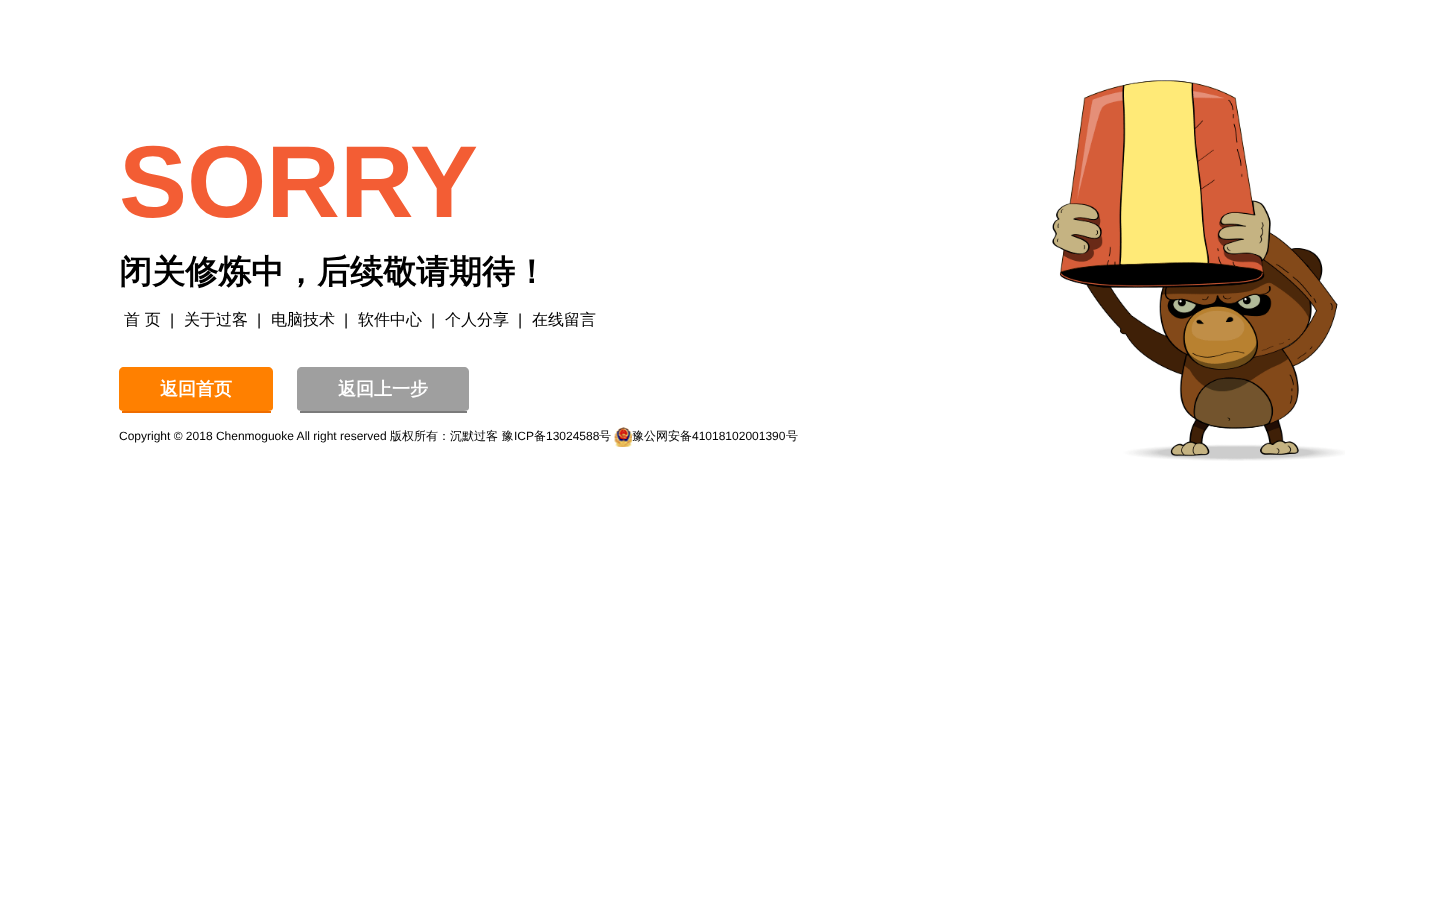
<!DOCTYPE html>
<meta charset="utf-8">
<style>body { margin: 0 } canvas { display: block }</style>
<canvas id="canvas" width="1448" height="909"></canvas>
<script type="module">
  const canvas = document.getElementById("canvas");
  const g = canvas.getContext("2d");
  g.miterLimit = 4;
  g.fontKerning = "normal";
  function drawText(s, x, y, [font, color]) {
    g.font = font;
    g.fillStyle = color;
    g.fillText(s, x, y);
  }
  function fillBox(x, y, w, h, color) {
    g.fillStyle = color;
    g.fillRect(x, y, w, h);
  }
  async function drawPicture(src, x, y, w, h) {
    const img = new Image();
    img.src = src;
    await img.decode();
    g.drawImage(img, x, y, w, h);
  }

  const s1 = ["bold 102px Liberation Sans", "#F35D34"];
  const s2 = ["bold 33px WenQuanYi Zen Hei", "#000000"];
  const s3 = ["500 16px WenQuanYi Zen Hei", "#000000"];
  const s4 = ["16px Liberation Sans", "#000000"];
  const s5 = ["bold 18px WenQuanYi Zen Hei", "#FFFFFF"];
  const s6 = ["12px Liberation Sans", "#000000"];
  const s7 = ["500 12px WenQuanYi Zen Hei", "#000000"];

  fillBox(0, 0, 1448, 909, "#FFFFFF");
  drawText("SORRY", 119, 217, s1);
  drawText("闭关修炼中，后续敬请期待！", 119, 283, s2);
  drawText("首 页", 124, 325, s3);
  drawText("|", 170, 325, s4);
  drawText("关于过客", 184, 325, s3);
  drawText("|", 257, 325, s4);
  drawText("电脑技术", 271, 325, s3);
  drawText("|", 344, 325, s4);
  drawText("软件中心", 358, 325, s3);
  drawText("|", 431, 325, s4);
  drawText("个人分享", 445, 325, s3);
  drawText("|", 518, 325, s4);
  drawText("在线留言", 532, 325, s3);
  g.fillStyle = "#FF8000";
  g.beginPath();
  g.moveTo(124, 367);
  g.lineTo(268, 367);
  g.bezierCurveTo(271, 367, 273, 369, 273, 372);
  g.lineTo(273, 408);
  g.bezierCurveTo(273, 410, 271, 411, 268, 411);
  g.lineTo(124, 411);
  g.bezierCurveTo(121, 411, 119, 410, 119, 408);
  g.lineTo(119, 372);
  g.bezierCurveTo(119, 369, 121, 367, 124, 367);
  g.closePath();
  g.fill();
  fillBox(122, 411, 149, 2, "#EF6D00");
  drawText("返回首页", 160, 395, s5);
  g.fillStyle = "#9F9F9F";
  g.beginPath();
  g.moveTo(302, 367);
  g.lineTo(464, 367);
  g.bezierCurveTo(467, 367, 469, 369, 469, 372);
  g.lineTo(469, 408);
  g.bezierCurveTo(469, 410, 467, 411, 464, 411);
  g.lineTo(302, 411);
  g.bezierCurveTo(299, 411, 297, 410, 297, 408);
  g.lineTo(297, 372);
  g.bezierCurveTo(297, 369, 299, 367, 302, 367);
  g.closePath();
  g.fill();
  fillBox(300, 411, 167, 2, "#7B7B7B");
  drawText("返回上一步", 338, 395, s5);
  drawText("Copyright © 2018 Chenmoguoke All right reserved", 119, 440, s6);
  drawText("版权所有：沉默过客 豫", 390, 440, s7);
  drawText("ICP", 514, 440, s6);
  drawText("备", 534, 440, s7);
  drawText("13024588", 546, 440, s6);
  drawText("号", 599, 440, s7);
  await drawPicture("pic1.png", 614, 427, 18, 20);
  drawText("豫公网安备", 632, 440, s7);
  drawText("41018102001390", 692, 440, s6);
  drawText("号", 786, 440, s7);
  await drawPicture("pic2.png", 1052, 80, 293, 381);
</script>
